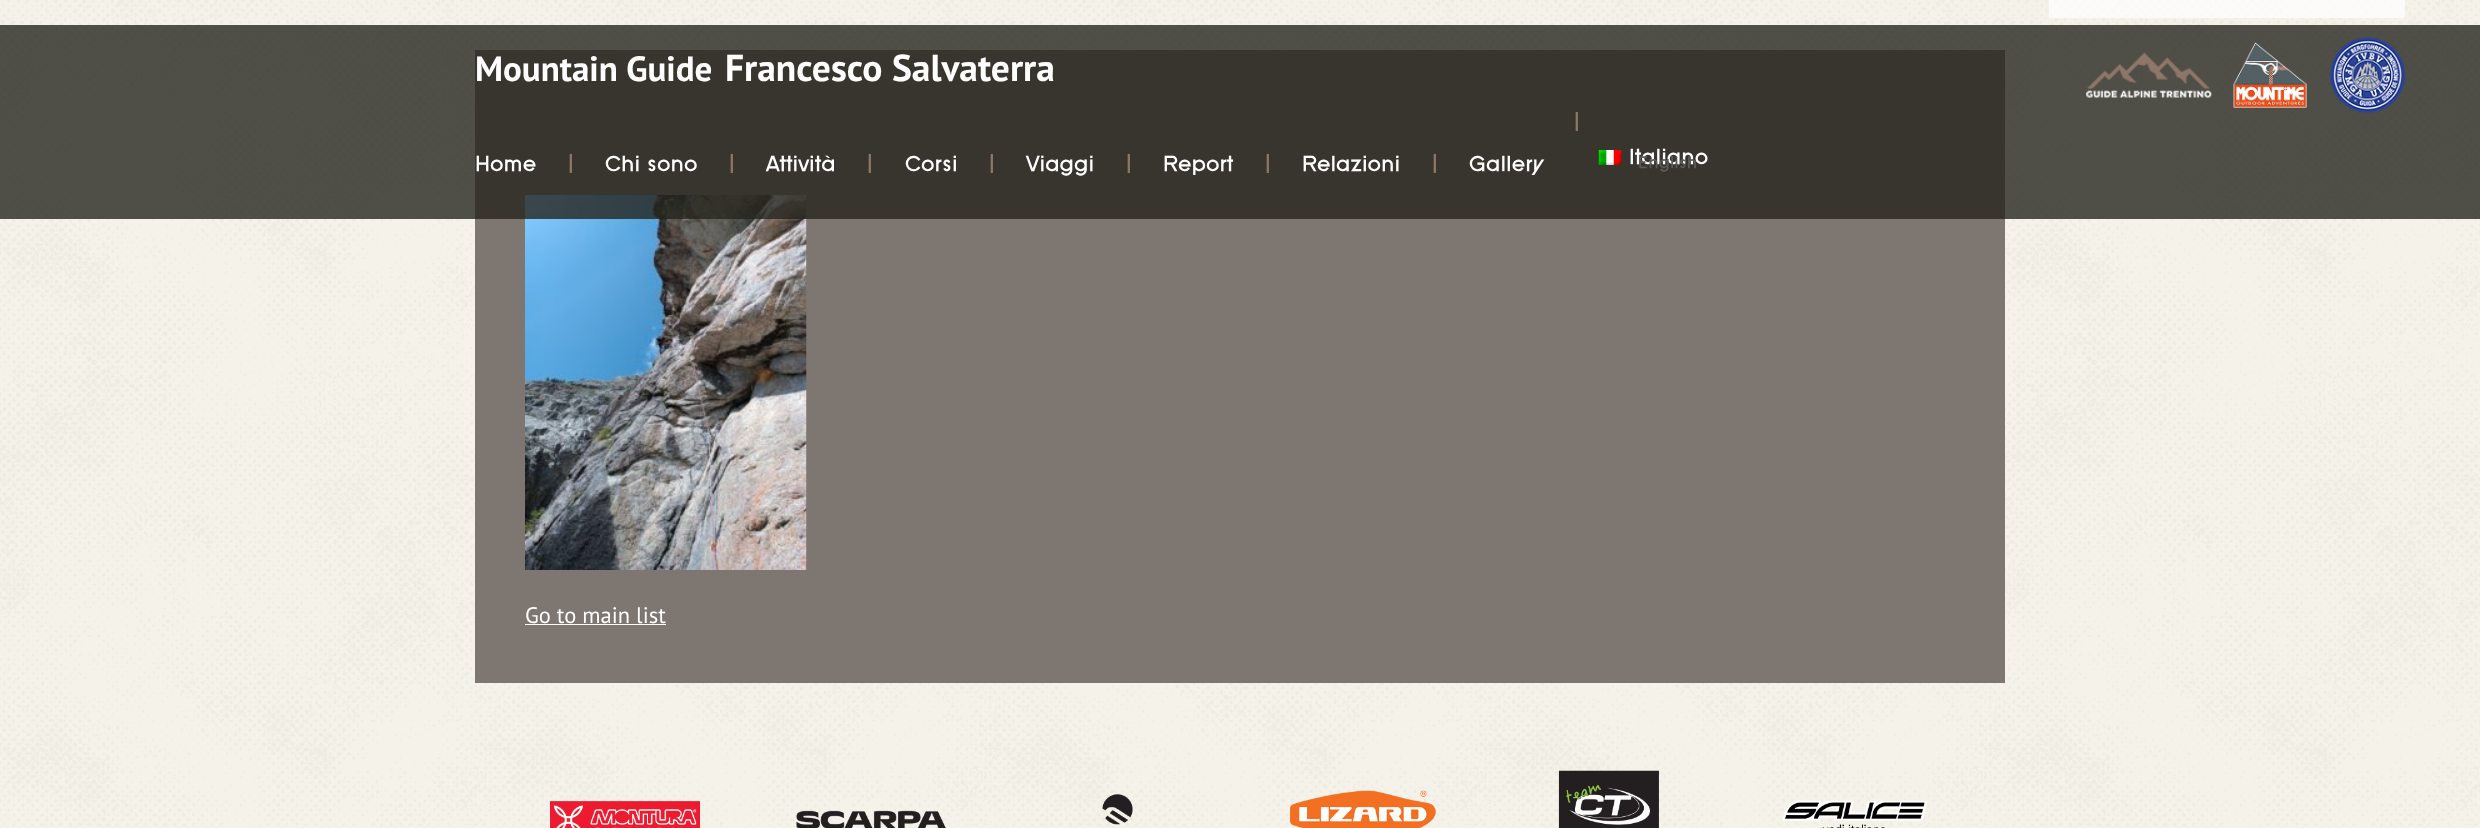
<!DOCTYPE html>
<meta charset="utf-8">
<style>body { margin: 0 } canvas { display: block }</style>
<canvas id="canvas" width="2480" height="828"></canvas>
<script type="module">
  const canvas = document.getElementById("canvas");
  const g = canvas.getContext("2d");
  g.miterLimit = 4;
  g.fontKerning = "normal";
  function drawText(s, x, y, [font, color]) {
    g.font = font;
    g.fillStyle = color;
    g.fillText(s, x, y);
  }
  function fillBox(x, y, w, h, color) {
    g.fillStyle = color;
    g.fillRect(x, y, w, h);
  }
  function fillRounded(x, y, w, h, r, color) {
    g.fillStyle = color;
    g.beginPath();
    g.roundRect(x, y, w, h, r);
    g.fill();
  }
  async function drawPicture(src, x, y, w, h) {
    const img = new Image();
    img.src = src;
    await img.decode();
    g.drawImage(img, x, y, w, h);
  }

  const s1 = ["bold 35px PT Sans", "#FFFFFF"];
  const s2 = ["bold 37.5px PT Sans", "#FFFFFF"];
  const s3 = ["bold 22.5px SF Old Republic", "#FFFFFF"];
  const s4 = ["bold 22.5px SF Old Republic", "#8F7768"];
  const s5 = ["bold 17.5px SF Old Republic", "#5D5B56"];
  const s6 = ["22.5px PT Sans", "#FFFFFF"];

  fillBox(0, 0, 2480, 828, "#FFFFFF");
  await drawPicture("pic1.png", 0, 17, 2480, 811);
  await drawPicture("pic6.png", 0, 0, 2480, 18);
  fillRounded(2049, -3, 356, 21, 2.5, "rgba(255, 255, 255, 0.7)");
  fillBox(475, 50, 1530, 633, "#7D7671");
  await drawPicture("pic7.png", 525, 195, 282, 375);
  fillBox(0, 25, 2480, 194, "rgba(38, 37, 30, 0.8)");
  drawText("Mountain Guide", 475, 81, s1);
  drawText("Francesco Salvaterra", 725, 81, s2);
  await drawPicture("pic2.png", 2086, 52, 126, 46);
  await drawPicture("pic3.png", 2233, 42, 74, 66);
  await drawPicture("pic4.png", 2330, 37, 75, 76);
  drawText("Home", 475, 171, s3);
  drawText("|", 568, 171, s4);
  drawText("Chi sono", 605, 171, s3);
  drawText("|", 729, 171, s4);
  drawText("Attività", 766, 171, s3);
  drawText("|", 867, 171, s4);
  drawText("Corsi", 905, 171, s3);
  drawText("|", 989, 171, s4);
  drawText("Viaggi", 1026, 171, s3);
  drawText("|", 1126, 171, s4);
  drawText("Report", 1163, 171, s3);
  drawText("|", 1265, 171, s4);
  drawText("Relazioni", 1302, 171, s3);
  drawText("|", 1432, 171, s4);
  drawText("Gallery", 1469, 171, s3);
  drawText("|", 1574, 129, s4);
  await drawPicture("pic5.png", 1598, 150, 24, 15);
  drawText("Italiano", 1629, 164, s3);
  drawText("English", 1638, 168, s5);
  drawText("Go to main list", 525, 623, s6);
  fillBox(525, 624, 141, 1, "#FFFFFF");
  await drawPicture("pic8.png", 550, 801, 150, 27);
  await drawPicture("pic9.png", 796, 810, 150, 18);
  await drawPicture("pic10.png", 1102, 794, 31, 31);
  await drawPicture("pic11.png", 1290, 790, 146, 38);
  await drawPicture("pic12.png", 1558, 770, 101, 58);
  await drawPicture("pic13.png", 1782, 800, 146, 28);
</script>
